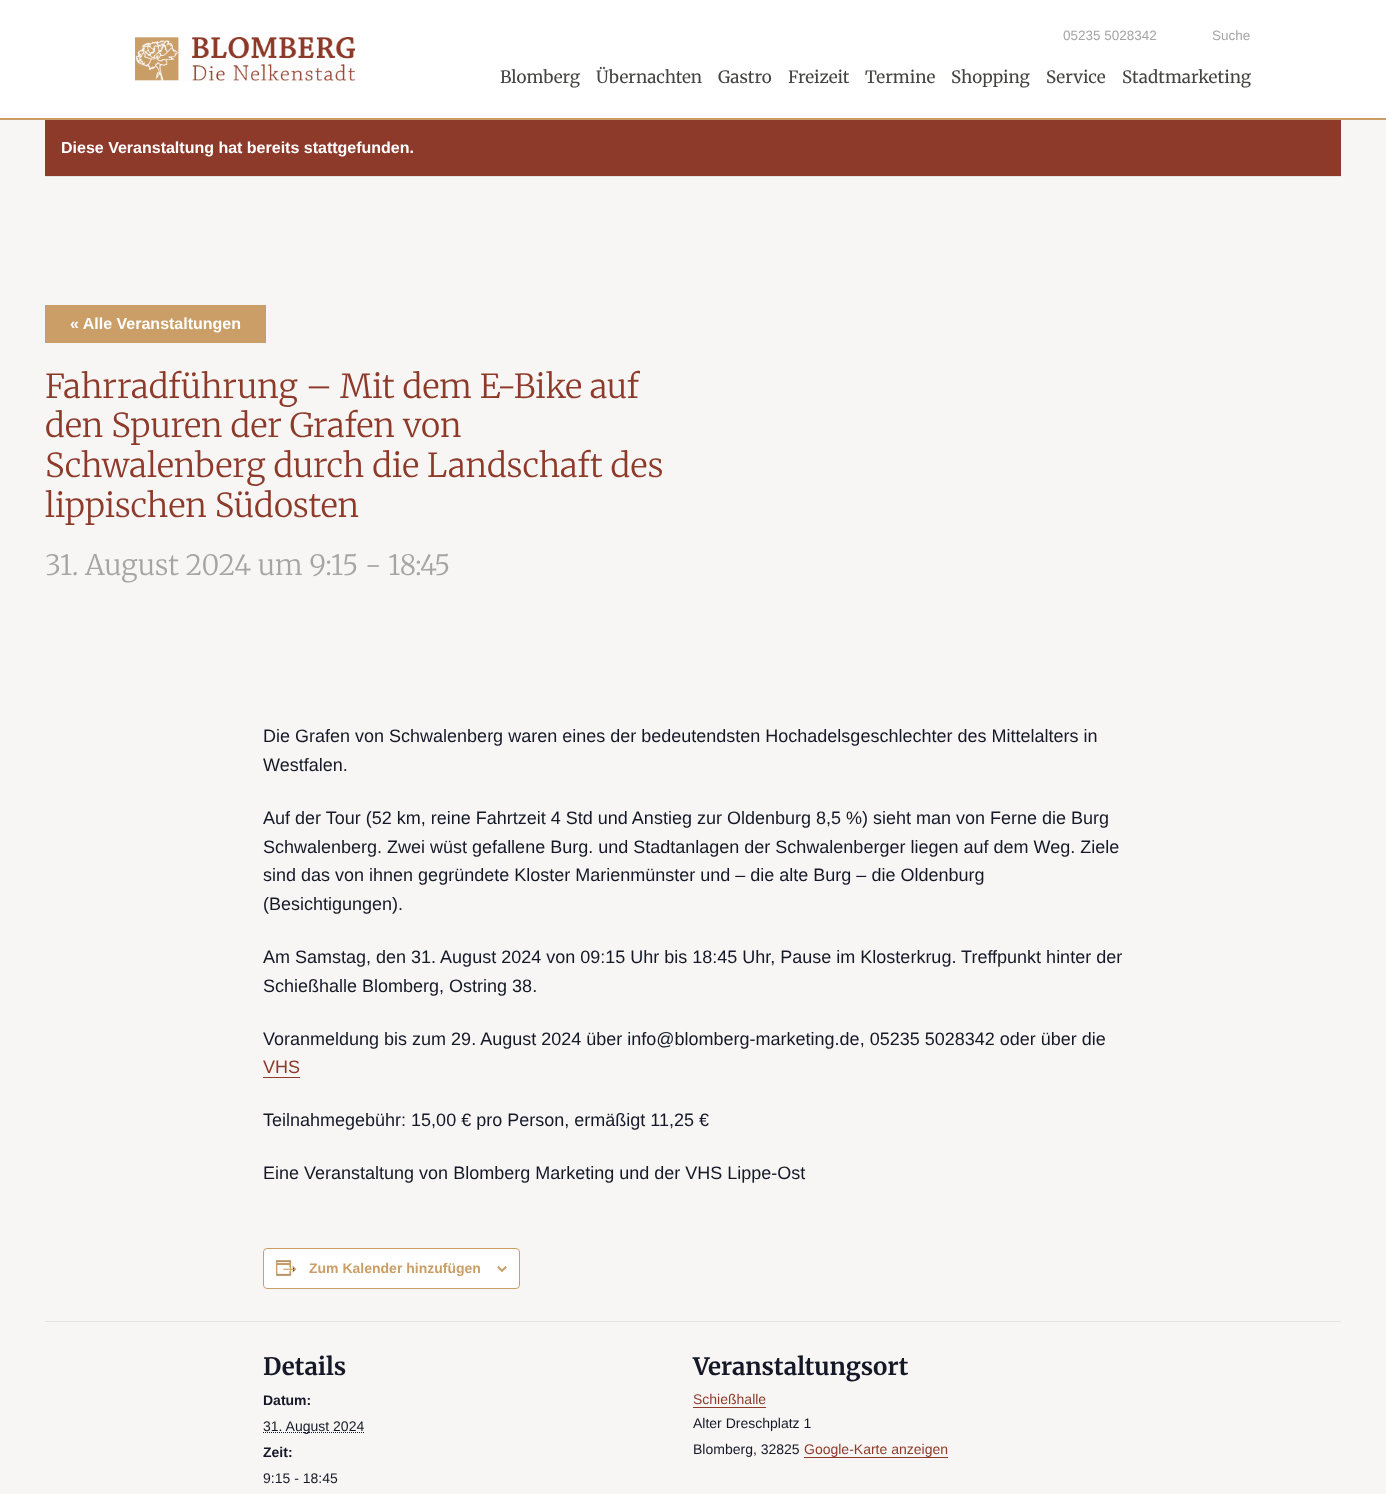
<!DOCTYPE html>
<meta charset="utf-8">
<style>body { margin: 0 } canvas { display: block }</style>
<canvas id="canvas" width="1386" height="1494"></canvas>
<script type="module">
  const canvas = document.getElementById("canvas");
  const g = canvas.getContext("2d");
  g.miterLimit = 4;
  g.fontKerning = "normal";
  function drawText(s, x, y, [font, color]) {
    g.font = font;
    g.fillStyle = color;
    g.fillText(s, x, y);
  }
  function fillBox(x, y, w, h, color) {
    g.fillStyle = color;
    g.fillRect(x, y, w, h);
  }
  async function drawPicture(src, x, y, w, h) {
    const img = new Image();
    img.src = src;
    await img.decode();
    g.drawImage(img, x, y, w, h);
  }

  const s1 = ["13.5px Liberation Sans", "#A5A5A5"];
  const s2 = ["17px Merriweather", "#454443"];
  const s3 = ["bold 16px Liberation Sans", "#FFFFFF"];
  const s4 = ["300 33.1px Merriweather", "#8D3A2A"];
  const s5 = ["300 28px Merriweather", "#A5A5A5"];
  const s6 = ["18px Liberation Sans", "#141827"];
  const s7 = ["18px Liberation Sans", "#8D3A2A"];
  const s8 = ["bold 14px Liberation Sans", "#CB9E67"];
  const s9 = ["bold 24px Merriweather", "#141827"];
  const s10 = ["bold 14px Liberation Sans", "#141827"];
  const s11 = ["14px Liberation Sans", "#141827"];
  const s12 = ["14px Liberation Sans", "#8D3A2A"];

  fillBox(0, 0, 1386, 1494, "#F8F6F4");
  fillBox(0, 0, 1386, 118, "#FFFFFF");
  fillBox(0, 118, 1386, 2, "#CB9E67");
  await drawPicture("pic1.png", 135, 37, 220, 44);
  drawText("05235 5028342", 1063, 40, s1);
  drawText("Suche", 1212, 40, s1);
  drawText("Blomberg", 500, 83, s2);
  drawText("Übernachten", 596, 83, s2);
  drawText("Gastro", 718, 83, s2);
  drawText("Freizeit", 788, 83, s2);
  drawText("Termine", 865, 83, s2);
  drawText("Shopping", 951, 83, s2);
  drawText("Service", 1046, 83, s2);
  drawText("Stadtmarketing", 1122, 83, s2);
  fillBox(45, 120, 1296, 56, "#8D3A2A");
  fillBox(45, 176, 1296, 1, "#E4E4E4");
  drawText("Diese Veranstaltung hat bereits stattgefunden.", 61, 153, s3);
  fillBox(45, 305, 221, 38, "#CB9E67");
  drawText("« Alle Veranstaltungen", 70, 329, s3);
  drawText("Fahrradführung – Mit dem E-Bike auf", 45, 398, s4);
  drawText("den Spuren der Grafen von", 45, 437, s4);
  drawText("Schwalenberg durch die Landschaft des", 45, 477, s4);
  drawText("lippischen Südosten", 45, 517, s4);
  drawText("31. August 2024 um 9:15 - 18:45", 45, 575, s5);
  drawText("Die Grafen von Schwalenberg waren eines der bedeutendsten Hochadelsgeschlechter des Mittelalters in", 263, 742, s6);
  drawText("Westfalen.", 263, 771, s6);
  drawText("Auf der Tour (52 km, reine Fahrtzeit 4 Std und Anstieg zur Oldenburg 8,5 %) sieht man von Ferne die Burg", 263, 824, s6);
  drawText("Schwalenberg. Zwei wüst gefallene Burg. und Stadtanlagen der Schwalenberger liegen auf dem Weg. Ziele", 263, 853, s6);
  drawText("sind das von ihnen gegründete Kloster Marienmünster und – die alte Burg – die Oldenburg", 263, 881, s6);
  drawText("(Besichtigungen).", 263, 910, s6);
  drawText("Am Samstag, den 31. August 2024 von 09:15 Uhr bis 18:45 Uhr, Pause im Klosterkrug. Treffpunkt hinter der", 263, 963, s6);
  drawText("Schießhalle Blomberg, Ostring 38.", 263, 992, s6);
  drawText("Voranmeldung bis zum 29. August 2024 über info@blomberg-marketing.de, 05235 5028342 oder über die", 263, 1045, s6);
  drawText("VHS", 263, 1073, s7);
  fillBox(263, 1077, 37, 1, "#8D3A2A");
  drawText("Teilnahmegebühr: 15,00 € pro Person, ermäßigt 11,25 €", 263, 1126, s6);
  drawText("Eine Veranstaltung von Blomberg Marketing und der VHS Lippe-Ost", 263, 1179, s6);
  g.fillStyle = "#FFFFFF";
  g.beginPath();
  g.roundRect(263.5, 1248.5, 256, 40, 3.5);
  g.fill();
  g.strokeStyle = "#CB9E67";
  g.stroke();
  await drawPicture("pic2.png", 276, 1260, 20, 16);
  drawText("Zum Kalender hinzufügen", 309, 1273, s8);
  await drawPicture("pic3.png", 497, 1266, 10, 6);
  fillBox(45, 1321, 1296, 1, "#E4E4E4");
  drawText("Details", 263, 1375, s9);
  drawText("Datum:", 263, 1405, s10);
  g.beginPath();
  g.moveTo(263, 1432.5);
  g.lineTo(364, 1432.5);
  g.strokeStyle = "#141827";
  g.setLineDash([1, 1]);
  g.stroke();
  drawText("31. August 2024", 263, 1431, s11);
  drawText("Zeit:", 263, 1457, s10);
  drawText("9:15 - 18:45", 263, 1483, s11);
  drawText("Veranstaltungsort", 693, 1375, s9);
  drawText("Schießhalle", 693, 1404, s12);
  fillBox(693, 1407, 73, 1, "#8D3A2A");
  drawText("Alter Dreschplatz 1", 693, 1428, s11);
  drawText("Blomberg, 32825", 693, 1454, s11);
  drawText("Google-Karte anzeigen", 804, 1454, s12);
  fillBox(804, 1457, 144, 1, "#8D3A2A");
</script>
